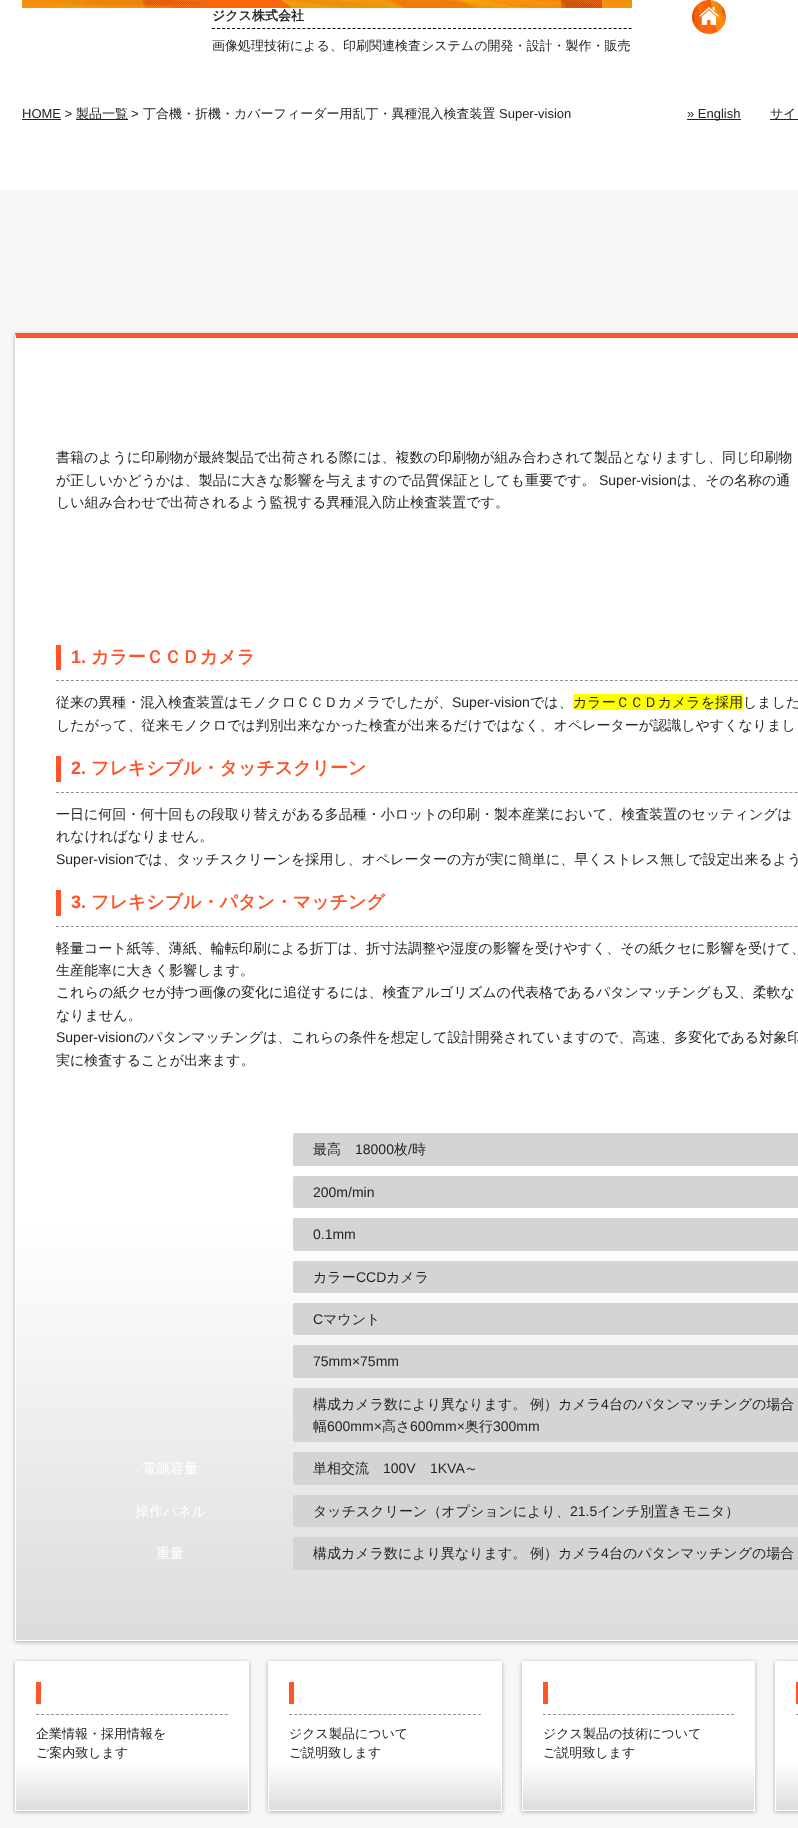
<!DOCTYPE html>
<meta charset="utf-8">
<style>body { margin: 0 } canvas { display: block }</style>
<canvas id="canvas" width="798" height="1828"></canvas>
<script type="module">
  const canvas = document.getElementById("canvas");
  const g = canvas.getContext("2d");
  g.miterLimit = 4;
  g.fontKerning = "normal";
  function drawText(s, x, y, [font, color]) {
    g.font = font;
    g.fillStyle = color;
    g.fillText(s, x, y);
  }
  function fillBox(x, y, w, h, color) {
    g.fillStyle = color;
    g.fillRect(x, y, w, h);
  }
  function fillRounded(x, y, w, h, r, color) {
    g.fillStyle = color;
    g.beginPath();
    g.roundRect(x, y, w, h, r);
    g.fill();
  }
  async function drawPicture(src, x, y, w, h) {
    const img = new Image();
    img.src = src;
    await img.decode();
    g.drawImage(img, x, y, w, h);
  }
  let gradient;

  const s1 = ["bold 13px WenQuanYi Zen Hei", "#242424"];
  const s2 = ["500 13px WenQuanYi Zen Hei", "#242424"];
  const s3 = ["13px Liberation Sans", "#242424"];
  const s4 = ["500 14px WenQuanYi Zen Hei", "#242424"];
  const s5 = ["14px Liberation Sans", "#242424"];
  const s6 = ["bold 18px Liberation Sans", "#FF5328"];
  const s7 = ["bold 18px WenQuanYi Zen Hei", "#FF5328"];
  const s8 = ["500 14px WenQuanYi Zen Hei", "#FFFFFF"];

  fillBox(0, 0, 798, 1828, "#FFFFFF");
  await drawPicture("pic1.png", 22, 0, 610, 8);
  g.beginPath();
  g.moveTo(212, 28.5);
  g.lineTo(632, 28.5);
  g.strokeStyle = "#000000";
  g.setLineDash([3, 2.02]);
  g.stroke();
  drawText("ジクス株式会社", 212, 20, s1);
  drawText("画像処理技術による、印刷関連検査システムの開発・設計・製作・販売", 212, 50, s2);
  await drawPicture("pic2.png", 692, 0, 34, 34);
  drawText("HOME >", 22, 118, s3);
  fillBox(22, 119, 39, 1, "#242424");
  fillBox(76, 119, 52, 1, "#242424");
  drawText("製品一覧", 76, 118, s2);
  drawText(">", 131, 118, s3);
  drawText("丁合機・折機・カバーフィーダー用乱丁・異種混入検査装置", 143, 118, s2);
  drawText("Super-vision", 499, 118, s3);
  fillBox(687, 119, 54, 1, "#242424");
  drawText("» English", 687, 118, s3);
  fillBox(770, 119, 28, 1, "#242424");
  drawText("サイ", 770, 118, s2);
  fillBox(0, 190, 798, 1638, "#F7F7F7");
  g.fillStyle = "rgba(0, 0, 0, 0.3)";
  g.filter = "blur(2px)";
  g.beginPath();
  g.rect(15, 334, 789, 1308);
  g.fill();
  g.filter = "none";
  gradient = g.createLinearGradient(512, 338, 512, 1640);
  gradient.addColorStop(0, "#FFFFFF");
  gradient.addColorStop(0.68, "#FFFFFF");
  gradient.addColorStop(0.99, "#DDDDDD");
  g.fillStyle = gradient;
  g.fillRect(16, 338, 782, 1302);
  g.fillStyle = "#FF5328";
  g.beginPath();
  g.moveTo(15, 333);
  g.lineTo(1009, 333);
  g.lineTo(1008, 338);
  g.lineTo(16, 338);
  g.closePath();
  g.fill();
  fillBox(15, 1640, 783, 1, "#FFFFFF");
  g.beginPath();
  g.moveTo(15, 1641);
  g.lineTo(15, 333);
  g.lineTo(16, 338);
  g.lineTo(16, 1640);
  g.closePath();
  g.fill();
  drawText("書籍のように印刷物が最終製品で出荷される際には、複数の印刷物が組み合わされて製品となりますし、同じ印刷物", 56, 462, s4);
  drawText("が正しいかどうかは、製品に大きな影響を与えますので品質保証としても重要です。", 56, 485, s4);
  drawText("Super-vision", 599, 485, s5);
  drawText("は、その名称の通", 677, 485, s4);
  drawText("しい組み合わせで出荷されるよう監視する異種混入防止検査装置です。", 56, 507, s4);
  fillBox(56, 645, 5, 25, "#FF5328");
  drawText("1.", 71, 663, s6);
  drawText("カラーＣＣＤカメラ", 91, 663, s7);
  g.beginPath();
  g.moveTo(56, 680.5);
  g.lineTo(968, 680.5);
  g.strokeStyle = "#929292";
  g.setLineDash([3, 1.99]);
  g.stroke();
  drawText("従来の異種・混入検査装置はモノクロＣＣＤカメラでしたが、", 56, 707, s4);
  drawText("Super-vision", 452, 707, s5);
  drawText("では、", 530, 707, s4);
  fillBox(573, 694, 170, 16, "#FFFF00");
  drawText("カラーＣＣＤカメラを採用しました", 573, 707, s4);
  drawText("したがって、従来モノクロでは判別出来なかった検査が出来るだけではなく、オペレーターが認識しやすくなりまし", 56, 730, s4);
  fillBox(56, 756, 5, 26, "#FF5328");
  drawText("2.", 71, 774, s6);
  drawText("フレキシブル・タッチスクリーン", 91, 774, s7);
  g.beginPath();
  g.moveTo(56, 792.5);
  g.lineTo(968, 792.5);
  g.stroke();
  drawText("一日に何回・何十回もの段取り替えがある多品種・小ロットの印刷・製本産業において、検査装置のセッティングは", 56, 819, s4);
  drawText("れなければなりません。", 56, 841, s4);
  drawText("Super-vision", 56, 864, s5);
  drawText("では、タッチスクリーンを採用し、オペレーターの方が実に簡単に、早くストレス無しで設定出来るよう", 134, 864, s4);
  fillBox(56, 890, 5, 26, "#FF5328");
  drawText("3.", 71, 908, s6);
  drawText("フレキシブル・パタン・マッチング", 91, 908, s7);
  g.beginPath();
  g.moveTo(56, 926.5);
  g.lineTo(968, 926.5);
  g.stroke();
  drawText("軽量コート紙等、薄紙、輪転印刷による折丁は、折寸法調整や湿度の影響を受けやすく、その紙クセに影響を受けて、", 56, 953, s4);
  drawText("生産能率に大きく影響します。", 56, 975, s4);
  drawText("これらの紙クセが持つ画像の変化に追従するには、検査アルゴリズムの代表格であるパタンマッチングも又、柔軟な", 56, 997, s4);
  drawText("なりません。", 56, 1020, s4);
  drawText("Super-vision", 56, 1042, s5);
  drawText("のパタンマッチングは、これらの条件を想定して設計開発されていますので、高速、多変化である対象印", 134, 1042, s4);
  drawText("実に検査することが出来ます。", 56, 1065, s4);
  fillRounded(293, 1133, 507, 33, 2, "#D4D4D4");
  drawText("最高", 313, 1154, s4);
  drawText("18000", 355, 1154, s5);
  drawText("枚", 394, 1154, s4);
  drawText("/", 408, 1154, s5);
  drawText("時", 412, 1154, s4);
  fillRounded(293, 1176, 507, 32, 2, "#D4D4D4");
  drawText("200m/min", 313, 1197, s5);
  fillRounded(293, 1218, 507, 33, 2, "#D4D4D4");
  drawText("0.1mm", 313, 1239, s5);
  fillRounded(293, 1261, 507, 32, 2, "#D4D4D4");
  drawText("カラー", 313, 1282, s4);
  drawText("CCD", 356, 1282, s5);
  drawText("カメラ", 386, 1282, s4);
  fillRounded(293, 1303, 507, 32, 2, "#D4D4D4");
  drawText("C", 313, 1324, s5);
  drawText("マウント", 323, 1324, s4);
  fillRounded(293, 1345, 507, 33, 2, "#D4D4D4");
  drawText("75mm×75mm", 313, 1366, s5);
  fillRounded(293, 1388, 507, 54, 2, "#D4D4D4");
  drawText("構成カメラ数により異なります。", 313, 1409, s4);
  drawText("例）カメラ", 530, 1409, s4);
  drawText("4", 601, 1409, s5);
  drawText("台のパタンマッチングの場合", 609, 1409, s4);
  drawText("幅", 313, 1431, s4);
  drawText("600mm×", 327, 1431, s5);
  drawText("高さ", 382, 1431, s4);
  drawText("600mm×", 410, 1431, s5);
  drawText("奥行", 465, 1431, s4);
  drawText("300mm", 493, 1431, s5);
  drawText("電源容量", 142, 1473, s8);
  fillRounded(293, 1452, 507, 33, 2, "#D4D4D4");
  drawText("単相交流", 313, 1473, s4);
  drawText("100V", 383, 1473, s5);
  drawText("1KVA", 430, 1473, s5);
  drawText("～", 464, 1473, s4);
  drawText("操作パネル", 135, 1516, s8);
  fillRounded(293, 1495, 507, 32, 2, "#D4D4D4");
  drawText("タッチスクリーン（オプションにより、", 313, 1516, s4);
  drawText("21.5", 570, 1516, s5);
  drawText("インチ別置きモニタ）", 597, 1516, s4);
  drawText("重量", 156, 1558, s8);
  fillRounded(293, 1537, 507, 33, 2, "#D4D4D4");
  drawText("構成カメラ数により異なります。", 313, 1558, s4);
  drawText("例）カメラ", 530, 1558, s4);
  drawText("4", 601, 1558, s5);
  drawText("台のパタンマッチングの場合", 609, 1558, s4);
  g.fillStyle = "rgba(0, 0, 0, 0.3)";
  g.filter = "blur(2px)";
  g.beginPath();
  g.rect(15, 1662, 234, 150);
  g.fill();
  g.filter = "none";
  gradient = g.createLinearGradient(132, 1662, 132, 1810);
  gradient.addColorStop(0, "#FFFFFF");
  gradient.addColorStop(0.68, "#FFFFFF");
  gradient.addColorStop(0.99, "#DDDDDD");
  g.fillStyle = gradient;
  g.fillRect(16, 1662, 232, 148);
  g.strokeStyle = "#FFFFFF";
  g.setLineDash([]);
  g.strokeRect(15.5, 1661.5, 233, 149);
  fillBox(36, 1682, 5, 22, "#FF5328");
  g.beginPath();
  g.moveTo(36, 1714.5);
  g.lineTo(228, 1714.5);
  g.strokeStyle = "#929292";
  g.setLineDash([3, 1.97]);
  g.stroke();
  drawText("企業情報・採用情報を", 36, 1738, s2);
  drawText("ご案内致します", 36, 1757, s2);
  g.fillStyle = "rgba(0, 0, 0, 0.3)";
  g.filter = "blur(2px)";
  g.beginPath();
  g.rect(268, 1662, 234, 150);
  g.fill();
  g.filter = "none";
  gradient = g.createLinearGradient(385, 1662, 385, 1810);
  gradient.addColorStop(0, "#FFFFFF");
  gradient.addColorStop(0.68, "#FFFFFF");
  gradient.addColorStop(0.99, "#DDDDDD");
  g.fillStyle = gradient;
  g.fillRect(269, 1662, 232, 148);
  g.strokeStyle = "#FFFFFF";
  g.setLineDash([]);
  g.strokeRect(268.5, 1661.5, 233, 149);
  fillBox(289, 1682, 5, 22, "#FF5328");
  g.beginPath();
  g.moveTo(289, 1714.5);
  g.lineTo(481, 1714.5);
  g.strokeStyle = "#929292";
  g.setLineDash([3, 1.97]);
  g.stroke();
  drawText("ジクス製品について", 289, 1738, s2);
  drawText("ご説明致します", 289, 1757, s2);
  g.fillStyle = "rgba(0, 0, 0, 0.3)";
  g.filter = "blur(2px)";
  g.beginPath();
  g.rect(522, 1662, 233, 150);
  g.fill();
  g.filter = "none";
  gradient = g.createLinearGradient(639, 1662, 639, 1810);
  gradient.addColorStop(0, "#FFFFFF");
  gradient.addColorStop(0.68, "#FFFFFF");
  gradient.addColorStop(0.99, "#DDDDDD");
  g.fillStyle = gradient;
  g.fillRect(523, 1662, 231, 148);
  g.strokeStyle = "#FFFFFF";
  g.setLineDash([]);
  g.strokeRect(522.5, 1661.5, 232, 149);
  fillBox(543, 1682, 5, 22, "#FF5328");
  g.beginPath();
  g.moveTo(543, 1714.5);
  g.lineTo(734, 1714.5);
  g.strokeStyle = "#929292";
  g.setLineDash([3, 1.95]);
  g.stroke();
  drawText("ジクス製品の技術について", 543, 1738, s2);
  drawText("ご説明致します", 543, 1757, s2);
  g.fillStyle = "rgba(0, 0, 0, 0.3)";
  g.filter = "blur(2px)";
  g.beginPath();
  g.rect(775, 1662, 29, 150);
  g.fill();
  g.filter = "none";
  gradient = g.createLinearGradient(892, 1662, 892, 1810);
  gradient.addColorStop(0, "#FFFFFF");
  gradient.addColorStop(0.68, "#FFFFFF");
  gradient.addColorStop(0.99, "#DDDDDD");
  g.fillStyle = gradient;
  g.fillRect(776, 1662, 22, 148);
  g.strokeStyle = "#FFFFFF";
  g.setLineDash([]);
  g.strokeRect(775.5, 1661.5, 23, 149);
  fillBox(796, 1682, 2, 22, "#FF5328");
  g.beginPath();
  g.moveTo(796, 1714.5);
  g.lineTo(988, 1714.5);
  g.strokeStyle = "#929292";
  g.setLineDash([3, 1.97]);
  g.stroke();
</script>
